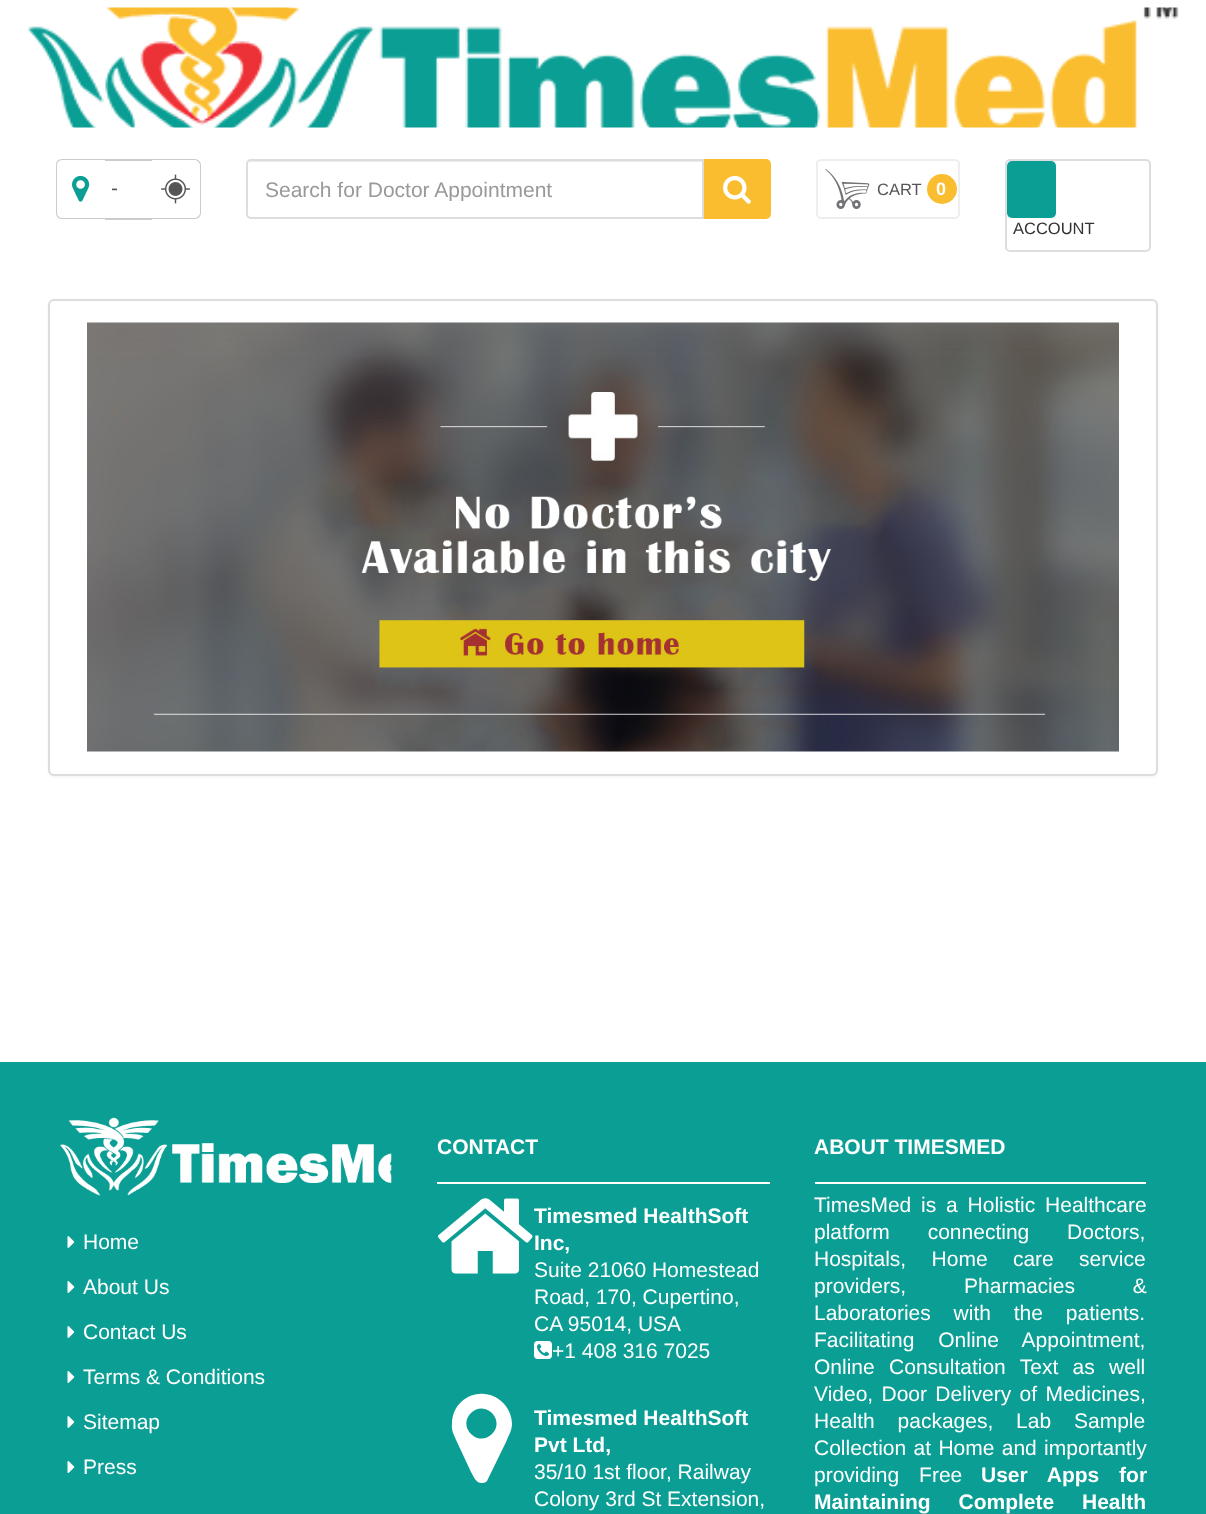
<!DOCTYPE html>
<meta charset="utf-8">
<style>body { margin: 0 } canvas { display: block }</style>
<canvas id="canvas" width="1206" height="1514"></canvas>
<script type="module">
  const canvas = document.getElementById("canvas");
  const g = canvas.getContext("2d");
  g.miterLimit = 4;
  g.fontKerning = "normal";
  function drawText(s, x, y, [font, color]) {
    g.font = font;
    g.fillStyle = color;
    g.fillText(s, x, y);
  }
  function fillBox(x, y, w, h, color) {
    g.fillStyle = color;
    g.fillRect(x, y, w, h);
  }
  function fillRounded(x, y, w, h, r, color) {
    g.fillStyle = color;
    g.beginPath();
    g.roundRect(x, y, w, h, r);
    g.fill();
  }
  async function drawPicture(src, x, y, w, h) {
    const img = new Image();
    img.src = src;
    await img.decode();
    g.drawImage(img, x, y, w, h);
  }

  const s1 = ["21px Liberation Sans", "#555555"];
  const s2 = ["21px Liberation Sans", "#999999"];
  const s3 = ["16.5px Liberation Sans", "#555555"];
  const s4 = ["bold 18px Liberation Sans", "#FFFFFF"];
  const s5 = ["16.5px Liberation Sans", "#333333"];
  const s6 = ["21px Liberation Sans", "#FFFFFF"];
  const s7 = ["bold 21px Liberation Sans", "#FFFFFF"];

  fillBox(0, 0, 1206, 1514, "#FFFFFF");
  await drawPicture("pic1.png", 28, 7, 1151, 121);
  g.fillStyle = "#CCCCCC";
  g.beginPath();
  g.moveTo(62, 159);
  g.lineTo(105, 159);
  g.lineTo(105, 219);
  g.lineTo(62, 219);
  g.bezierCurveTo(58, 219, 56, 216, 56, 213);
  g.lineTo(56, 165);
  g.bezierCurveTo(56, 162, 58, 159, 62, 159);
  g.closePath();
  g.moveTo(62, 160);
  g.lineTo(105, 160);
  g.lineTo(105, 218);
  g.lineTo(62, 218);
  g.bezierCurveTo(59, 218, 57, 215, 57, 213);
  g.lineTo(57, 165);
  g.bezierCurveTo(57, 163, 59, 160, 62, 160);
  g.closePath();
  g.fill("evenodd");
  await drawPicture("pic2.png", 72, 175, 18, 27);
  fillBox(105, 159, 47, 2, "#CCCCCC");
  fillBox(105, 218, 47, 2, "#CCCCCC");
  drawText("-", 111, 195, s1);
  g.fillStyle = "#CCCCCC";
  g.beginPath();
  g.moveTo(152, 159);
  g.lineTo(195, 159);
  g.bezierCurveTo(198, 159, 201, 162, 201, 165);
  g.lineTo(201, 213);
  g.bezierCurveTo(201, 216, 198, 219, 195, 219);
  g.lineTo(152, 219);
  g.closePath();
  g.moveTo(152, 160);
  g.lineTo(195, 160);
  g.bezierCurveTo(197, 160, 200, 163, 200, 165);
  g.lineTo(200, 213);
  g.bezierCurveTo(200, 215, 197, 218, 195, 218);
  g.lineTo(152, 218);
  g.closePath();
  g.fill("evenodd");
  await drawPicture("pic3.png", 161, 174, 29, 30);
  g.fillStyle = "#ECECEC";
  g.beginPath();
  g.moveTo(250, 162);
  g.lineTo(702, 162);
  g.lineTo(702, 161);
  g.lineTo(251, 161);
  g.bezierCurveTo(249, 161, 248, 163, 248, 165);
  g.bezierCurveTo(248, 163, 249, 162, 250, 162);
  g.closePath();
  g.fill();
  g.beginPath();
  g.roundRect(247, 160, 456, 58, [4, 0, 0, 4]);
  g.strokeStyle = "#DDDDDD";
  g.lineWidth = 2;
  g.stroke();
  g.save();
  g.beginPath();
  g.rect(266, 177, 418, 24);
  g.clip();
  drawText("Search for Doctor Appointment", 265, 197, s2);
  g.restore();
  g.fillStyle = "#FABD2F";
  g.beginPath();
  g.roundRect(704, 159, 67, 60, [0, 5, 5, 0]);
  g.fill();
  await drawPicture("pic4.png", 723, 175, 28, 29);
  g.beginPath();
  g.roundRect(817, 160, 142, 58, 4);
  g.strokeStyle = "#EEEEEE";
  g.stroke();
  await drawPicture("pic5.png", 825, 169, 45, 40);
  drawText("CART", 877, 195, s3);
  g.fillStyle = "#FABD2F";
  g.beginPath();
  g.arc(942, 189, 15, 0, Math.PI * 2);
  g.fill();
  drawText("0", 936, 195, s4);
  g.beginPath();
  g.roundRect(1006, 160, 144, 91, 4);
  g.strokeStyle = "#DDDDDD";
  g.stroke();
  fillRounded(1007, 161, 49, 57, 5, "#0B9E94");
  drawText("ACCOUNT", 1013, 234, s5);
  g.fillStyle = "rgba(0, 0, 0, 0.05)";
  g.filter = "blur(1px)";
  g.beginPath();
  g.roundRect(48, 300, 1110, 477, 6);
  g.fill();
  g.filter = "none";
  g.fillStyle = "#FFFFFF";
  g.beginPath();
  g.roundRect(49, 300, 1108, 475, 5);
  g.fill();
  g.stroke();
  await drawPicture("pic6.png", 87, 322, 1032, 430);
  fillBox(0, 1062, 1206, 452, "#0B9E94");
  await drawPicture("pic7.png", 60, 1117, 332, 79);
  await drawPicture("pic8.png", 67, 1236, 8, 12);
  drawText("Home", 83, 1249, s6);
  await drawPicture("pic8.png", 67, 1281, 8, 12);
  drawText("About Us", 83, 1294, s6);
  await drawPicture("pic8.png", 67, 1326, 8, 12);
  drawText("Contact Us", 83, 1339, s6);
  await drawPicture("pic8.png", 67, 1371, 8, 12);
  drawText("Terms & Conditions", 83, 1384, s6);
  await drawPicture("pic8.png", 67, 1416, 8, 12);
  drawText("Sitemap", 83, 1429, s6);
  await drawPicture("pic8.png", 67, 1461, 8, 12);
  drawText("Press", 83, 1474, s6);
  fillBox(437, 1182, 333, 2, "#FFFFFF");
  drawText("CONTACT", 437, 1154, s7);
  await drawPicture("pic9.png", 438, 1198, 95, 76);
  drawText("Timesmed HealthSoft", 534, 1223, s7);
  drawText("Inc,", 534, 1250, s7);
  drawText("Suite 21060 Homestead", 534, 1277, s6);
  drawText("Road, 170, Cupertino,", 534, 1304, s6);
  drawText("CA 95014, USA", 534, 1331, s6);
  await drawPicture("pic10.png", 534, 1341, 18, 18);
  drawText("+1 408 316 7025", 552, 1358, s6);
  g.beginPath();
  g.moveTo(492, 1434);
  g.bezierCurveTo(506, 1420, 485, 1399, 471, 1413);
  g.bezierCurveTo(457, 1427, 478, 1448, 492, 1434);
  g.closePath();
  g.moveTo(512, 1424);
  g.bezierCurveTo(512, 1430, 509, 1435, 506, 1442);
  g.lineTo(487, 1481);
  g.bezierCurveTo(486, 1482, 484, 1483, 483, 1483);
  g.bezierCurveTo(476, 1484, 474, 1477, 471, 1472);
  g.lineTo(457, 1442);
  g.bezierCurveTo(454, 1435, 451, 1430, 452, 1424);
  g.bezierCurveTo(452, 1395, 487, 1383, 505, 1405);
  g.bezierCurveTo(509, 1410, 512, 1417, 512, 1424);
  g.closePath();
  g.fill();
  drawText("Timesmed HealthSoft", 534, 1425, s7);
  drawText("Pvt Ltd,", 534, 1452, s7);
  drawText("35/10 1st floor, Railway", 534, 1479, s6);
  drawText("Colony 3rd St Extension,", 534, 1506, s6);
  fillBox(815, 1182, 331, 2, "#FFFFFF");
  drawText("ABOUT TIMESMED", 814, 1154, s7);
  g.wordSpacing = "4px";
  drawText("TimesMed is a Holistic Healthcare", 814, 1212, s6);
  g.wordSpacing = "32px";
  drawText("platform connecting Doctors,", 814, 1239, s6);
  g.wordSpacing = "19.5px";
  drawText("Hospitals, Home care service", 814, 1266, s6);
  g.wordSpacing = "52px";
  drawText("providers, Pharmacies &", 814, 1293, s6);
  g.wordSpacing = "17px";
  drawText("Laboratories with the patients.", 814, 1320, s6);
  g.wordSpacing = "18px";
  drawText("Facilitating Online Appointment,", 814, 1347, s6);
  g.wordSpacing = "8.5px";
  drawText("Online Consultation Text as well", 814, 1374, s6);
  g.wordSpacing = "2.5px";
  drawText("Video, Door Delivery of Medicines,", 814, 1401, s6);
  g.wordSpacing = "17px";
  drawText("Health packages, Lab Sample", 814, 1428, s6);
  g.wordSpacing = "1.5px";
  drawText("Collection at Home and importantly", 814, 1455, s6);
  g.wordSpacing = "14px";
  drawText("providing Free", 814, 1482, s6);
  drawText("User Apps for", 981, 1482, s7);
  g.wordSpacing = "22px";
  drawText("Maintaining Complete Health", 814, 1509, s7);
</script>
